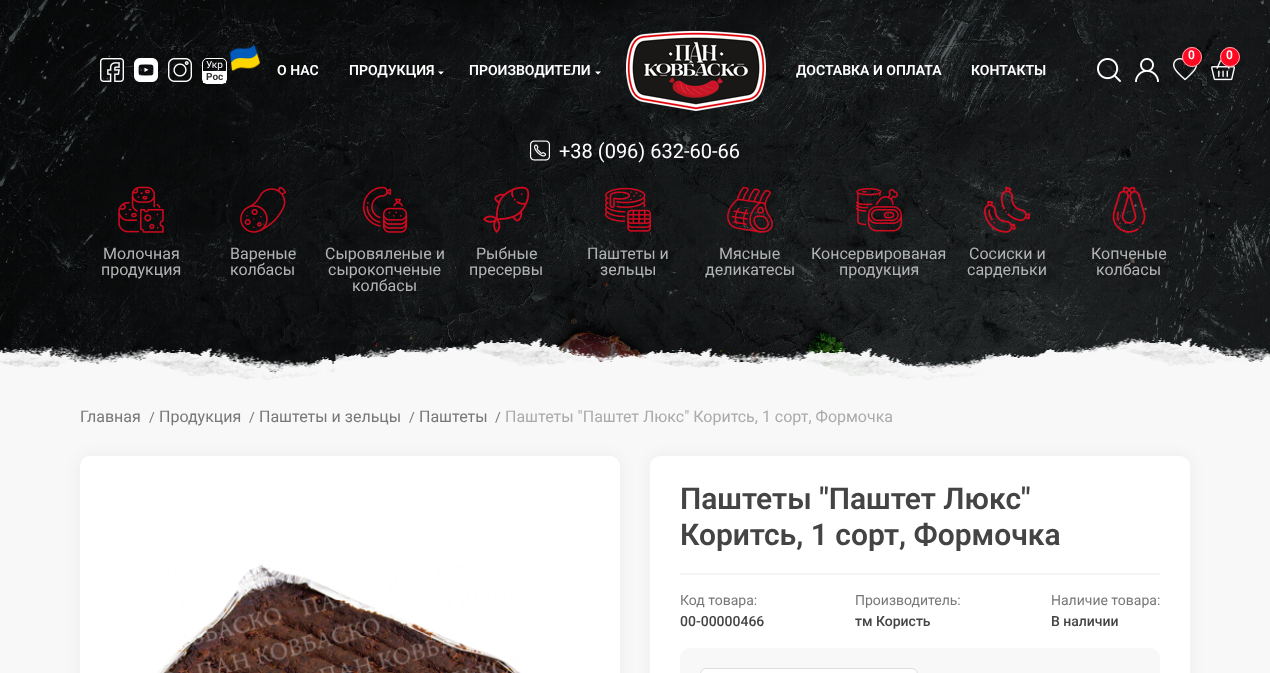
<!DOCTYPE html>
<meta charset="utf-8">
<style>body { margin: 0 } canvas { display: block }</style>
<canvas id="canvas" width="1270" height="673"></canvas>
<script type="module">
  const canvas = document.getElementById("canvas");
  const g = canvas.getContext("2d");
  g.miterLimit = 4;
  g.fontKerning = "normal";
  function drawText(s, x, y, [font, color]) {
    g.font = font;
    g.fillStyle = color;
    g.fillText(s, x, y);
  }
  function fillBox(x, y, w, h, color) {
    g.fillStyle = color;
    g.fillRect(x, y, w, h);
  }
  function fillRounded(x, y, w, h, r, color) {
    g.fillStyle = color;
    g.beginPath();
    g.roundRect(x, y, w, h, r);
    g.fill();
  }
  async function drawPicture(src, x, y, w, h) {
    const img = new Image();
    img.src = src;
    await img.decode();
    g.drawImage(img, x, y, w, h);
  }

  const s1 = ["600 12px Roboto", "#FFFFFF"];
  const s2 = ["10px Roboto", "#FFFFFF"];
  const s3 = ["bold 10px Roboto", "#333333"];
  const s4 = ["600 14px Roboto", "#FFFFFF"];
  const s5 = ["20px Roboto", "#FFFFFF"];
  const s6 = ["16px Roboto", "#B3B4B4"];
  const s7 = ["16px Roboto", "#777777"];
  const s8 = ["14px Roboto", "#777777"];
  const s9 = ["16px Roboto", "#AAAAAA"];
  const s10 = ["600 30px Roboto", "#444444"];
  const s11 = ["500 14px Roboto", "#444444"];

  fillBox(0, 0, 1270, 673, "#FFFFFF");
  await drawPicture("pic1.png", 0, 0, 1270, 380);
  await drawPicture("pic2.png", 1173, 58, 24, 23);
  g.fillStyle = "#FF0822";
  g.beginPath();
  g.arc(1192, 57, 10, 0, Math.PI * 2);
  g.fill();
  g.beginPath();
  g.arc(1192, 57, 9.5, 0, Math.PI * 2);
  g.strokeStyle = "rgba(255, 255, 255, 0.65)";
  g.stroke();
  drawText("0", 1188, 59, s1);
  await drawPicture("pic3.png", 1211, 59, 24, 22);
  g.fillStyle = "#FF0822";
  g.beginPath();
  g.arc(1230, 57, 10, 0, Math.PI * 2);
  g.fill();
  g.beginPath();
  g.arc(1230, 57, 9.5, 0, Math.PI * 2);
  g.stroke();
  drawText("0", 1226, 59, s1);
  await drawPicture("pic4.png", 1097, 58, 24, 24);
  await drawPicture("pic5.png", 1135, 58, 24, 24);
  await drawPicture("pic6.png", 100, 58, 24, 24);
  await drawPicture("pic7.png", 134, 58, 24, 24);
  await drawPicture("pic8.png", 168, 58, 24, 24);
  g.beginPath();
  g.roundRect(202.5, 58.5, 24, 25, 4.5);
  g.strokeStyle = "#FFFFFF";
  g.stroke();
  drawText("Укр", 206, 68, s2);
  await drawPicture("pic9.png", 230, 45, 30, 27);
  fillBox(203, 71, 23, 12, "#FFFFFF");
  drawText("Рос", 206, 80, s3);
  drawText("О НАС", 277, 75, s4);
  drawText("ПРОДУКЦИЯ", 349, 75, s4);
  g.beginPath();
  g.moveTo(438, 71.5);
  g.lineTo(441, 74.5);
  g.lineTo(444, 71.5);
  g.closePath();
  g.fill("evenodd");
  drawText("ПРОИЗВОДИТЕЛИ", 469, 75, s4);
  g.beginPath();
  g.moveTo(595, 71.5);
  g.lineTo(598, 74.5);
  g.lineTo(601, 71.5);
  g.closePath();
  g.fill("evenodd");
  await drawPicture("pic10.png", 626, 31, 140, 80);
  drawText("ДОСТАВКА И ОПЛАТА", 796, 75, s4);
  drawText("КОНТАКТЫ", 971, 75, s4);
  await drawPicture("pic11.png", 530, 140, 20, 21);
  drawText("+38 (096) 632-60-66", 559, 158, s5);
  await drawPicture("pic12.png", 118, 186, 46, 47);
  drawText("Молочная", 103, 259, s6);
  drawText("продукция", 101, 275, s6);
  await drawPicture("pic13.png", 240, 186, 46, 47);
  drawText("Вареные", 230, 259, s6);
  drawText("колбасы", 230, 275, s6);
  await drawPicture("pic14.png", 362, 186, 46, 47);
  drawText("Сыровяленые и", 325, 259, s6);
  drawText("сырокопченые", 328, 275, s6);
  drawText("колбасы", 352, 291, s6);
  await drawPicture("pic15.png", 483, 186, 47, 47);
  drawText("Рыбные", 476, 259, s6);
  drawText("пресервы", 469, 275, s6);
  await drawPicture("pic16.png", 605, 187, 46, 45);
  drawText("Паштеты и", 587, 259, s6);
  drawText("зельцы", 600, 275, s6);
  await drawPicture("pic17.png", 727, 186, 46, 47);
  drawText("Мясные", 719, 259, s6);
  drawText("деликатесы", 705, 275, s6);
  await drawPicture("pic18.png", 856, 188, 46, 44);
  drawText("Консервированая", 811, 259, s6);
  drawText("продукция", 839, 275, s6);
  await drawPicture("pic19.png", 984, 186, 46, 47);
  drawText("Сосиски и", 969, 259, s6);
  drawText("сардельки", 967, 275, s6);
  await drawPicture("pic20.png", 1112, 186, 34, 47);
  drawText("Копченые", 1091, 259, s6);
  drawText("колбасы", 1096, 275, s6);
  fillBox(0, 380, 1270, 293, "#F8F8F8");
  await drawPicture("pic21.png", 0, 337, 1270, 43);
  drawText("Главная", 80, 422, s7);
  drawText("/", 149, 422, s8);
  drawText("Продукция", 159, 422, s7);
  drawText("/", 249, 422, s8);
  drawText("Паштеты и зельцы", 259, 422, s7);
  drawText("/", 409, 422, s8);
  drawText("Паштеты", 419, 422, s7);
  drawText("/", 495, 422, s8);
  drawText("Паштеты \"Паштет Люкс\" Коритсь, 1 сорт, Формочка", 505, 422, s9);
  g.fillStyle = "rgba(0, 0, 0, 0.05)";
  g.filter = "blur(7.5px)";
  g.beginPath();
  g.roundRect(80, 456, 540, 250, 10);
  g.fill();
  g.filter = "none";
  fillRounded(80, 456, 540, 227, 10, "#FFFFFF");
  await drawPicture("pic22.png", 157, 564, 364, 109);
  g.fillStyle = "rgba(0, 0, 0, 0.05)";
  g.filter = "blur(7.5px)";
  g.beginPath();
  g.roundRect(650, 456, 540, 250, 10);
  g.fill();
  g.filter = "none";
  fillRounded(650, 456, 540, 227, 10, "#FFFFFF");
  fillBox(680, 573, 480, 2, "#F5F5F5");
  drawText("Паштеты \"Паштет Люкс\"", 680, 509, s10);
  drawText("Коритсь, 1 сорт, Формочка", 680, 545, s10);
  drawText("Код товара:", 680, 605, s8);
  drawText("00-00000466", 680, 626, s11);
  drawText("Производитель:", 855, 605, s8);
  drawText("тм Користь", 855, 626, s11);
  drawText("Наличие товара:", 1051, 605, s8);
  drawText("В наличии", 1051, 626, s11);
  fillRounded(680, 648, 480, 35, 10, "#F8F8F8");
  fillRounded(701, 669, 216, 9, 5, "#FFFFFF");
  g.beginPath();
  g.roundRect(700.5, 668.5, 217, 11, 5.5);
  g.strokeStyle = "#DEDEDE";
  g.stroke();
</script>
